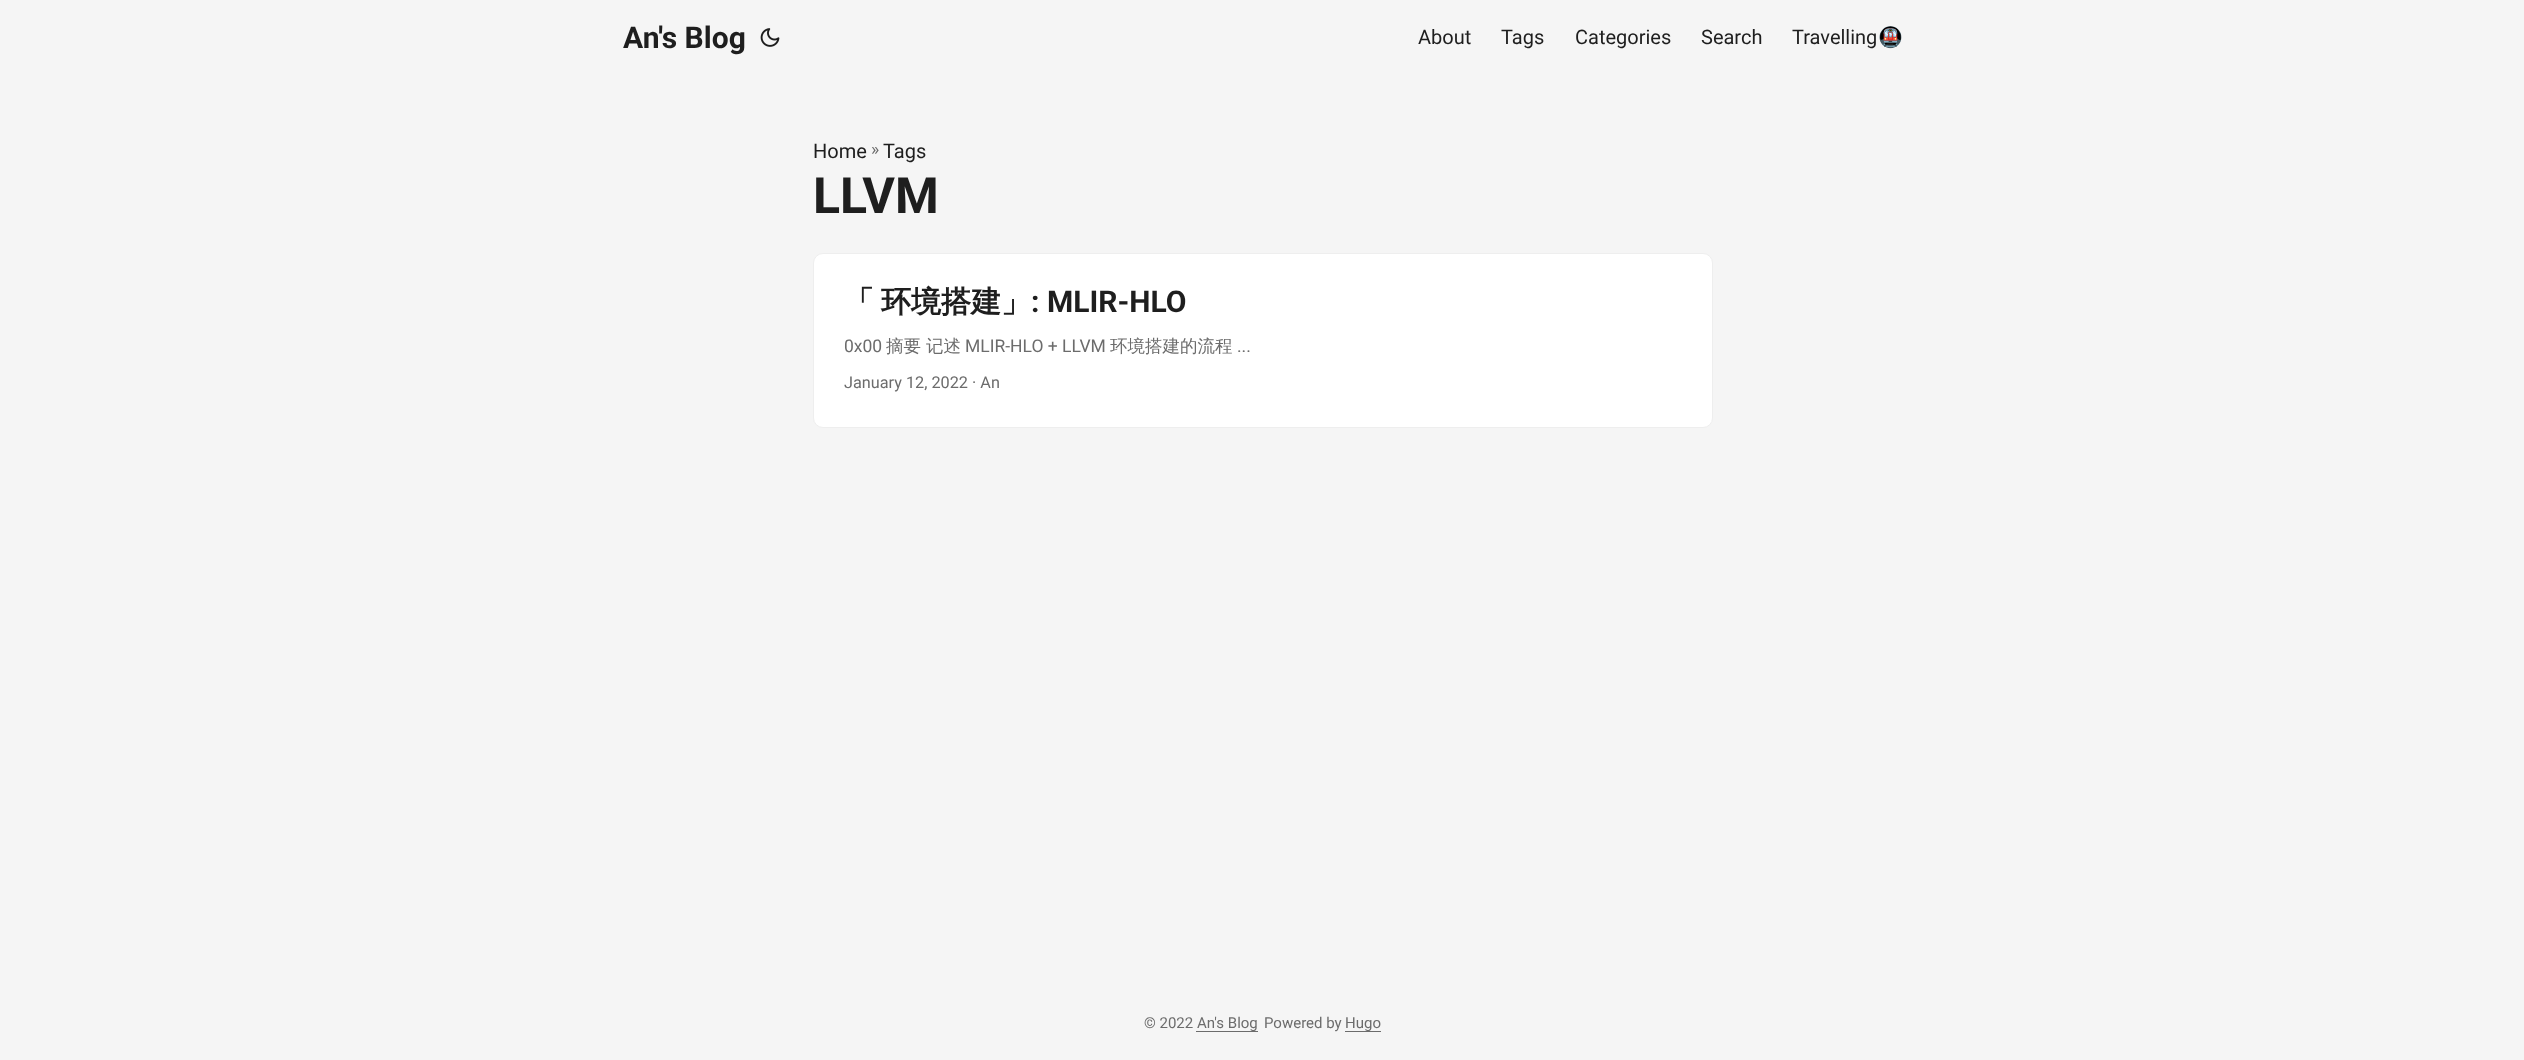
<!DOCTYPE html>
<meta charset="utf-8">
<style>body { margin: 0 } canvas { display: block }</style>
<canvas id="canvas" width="2524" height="1060"></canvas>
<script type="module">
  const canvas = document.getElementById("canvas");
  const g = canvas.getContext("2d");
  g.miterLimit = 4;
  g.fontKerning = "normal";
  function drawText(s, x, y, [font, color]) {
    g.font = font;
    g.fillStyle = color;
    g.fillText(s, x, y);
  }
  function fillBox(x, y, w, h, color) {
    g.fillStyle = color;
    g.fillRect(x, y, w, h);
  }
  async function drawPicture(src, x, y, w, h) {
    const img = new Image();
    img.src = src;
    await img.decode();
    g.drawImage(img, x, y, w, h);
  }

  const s1 = ["bold 30px Roboto", "#1E1E1E"];
  const s2 = ["20px Roboto", "#1E1E1E"];
  const s3 = ["20px Noto Color Emoji", "#1E1E1E"];
  const s4 = ["17.5px Roboto", "#6C6C6C"];
  const s5 = ["bold 50px Roboto", "#1E1E1E"];
  const s6 = ["bold 30px WenQuanYi Zen Hei", "#1E1E1E"];
  const s7 = ["500 17.5px WenQuanYi Zen Hei", "#6C6C6C"];
  const s8 = ["16.25px Roboto", "#6C6C6C"];
  const s9 = ["15px Roboto", "#6C6C6C"];

  fillBox(0, 0, 2524, 1060, "#F5F5F5");
  drawText("An's Blog", 623, 48, s1);
  await drawPicture("pic1.png", 760, 28, 20, 19);
  drawText("About", 1418, 44, s2);
  drawText("Tags", 1501, 44, s2);
  drawText("Categories", 1575, 44, s2);
  drawText("Search", 1701, 44, s2);
  drawText("Travelling", 1792, 44, s2);
  drawText("🚇", 1878, 44, s3);
  drawText("Home", 813, 158, s2);
  drawText("»", 871, 155, s4);
  drawText("Tags", 883, 158, s2);
  drawText("LLVM", 813, 213, s5);
  g.fillStyle = "#FFFFFF";
  g.beginPath();
  g.roundRect(813.5, 253.5, 899, 174, 9.5);
  g.fill();
  g.strokeStyle = "#EEEEEE";
  g.stroke();
  drawText("「", 844, 312, s6);
  drawText("环境搭建」", 881, 312, s6);
  drawText(": MLIR-HLO", 1031, 312, s1);
  drawText("0x00", 844, 352, s4);
  drawText("摘要", 886, 352, s7);
  drawText("记述", 926, 352, s7);
  drawText("MLIR-HLO + LLVM", 965, 352, s4);
  drawText("环境搭建的流程", 1110, 352, s7);
  drawText("...", 1237, 352, s4);
  drawText("January 12, 2022 · An", 844, 388, s8);
  drawText("© 2022", 1144, 1028, s9);
  fillBox(1196, 1031, 62, 1, "#6C6C6C");
  drawText("An's Blog", 1197, 1028, s9);
  drawText("Powered by", 1264, 1028, s9);
  fillBox(1345, 1031, 36, 1, "#6C6C6C");
  drawText("Hugo", 1345, 1028, s9);
</script>
